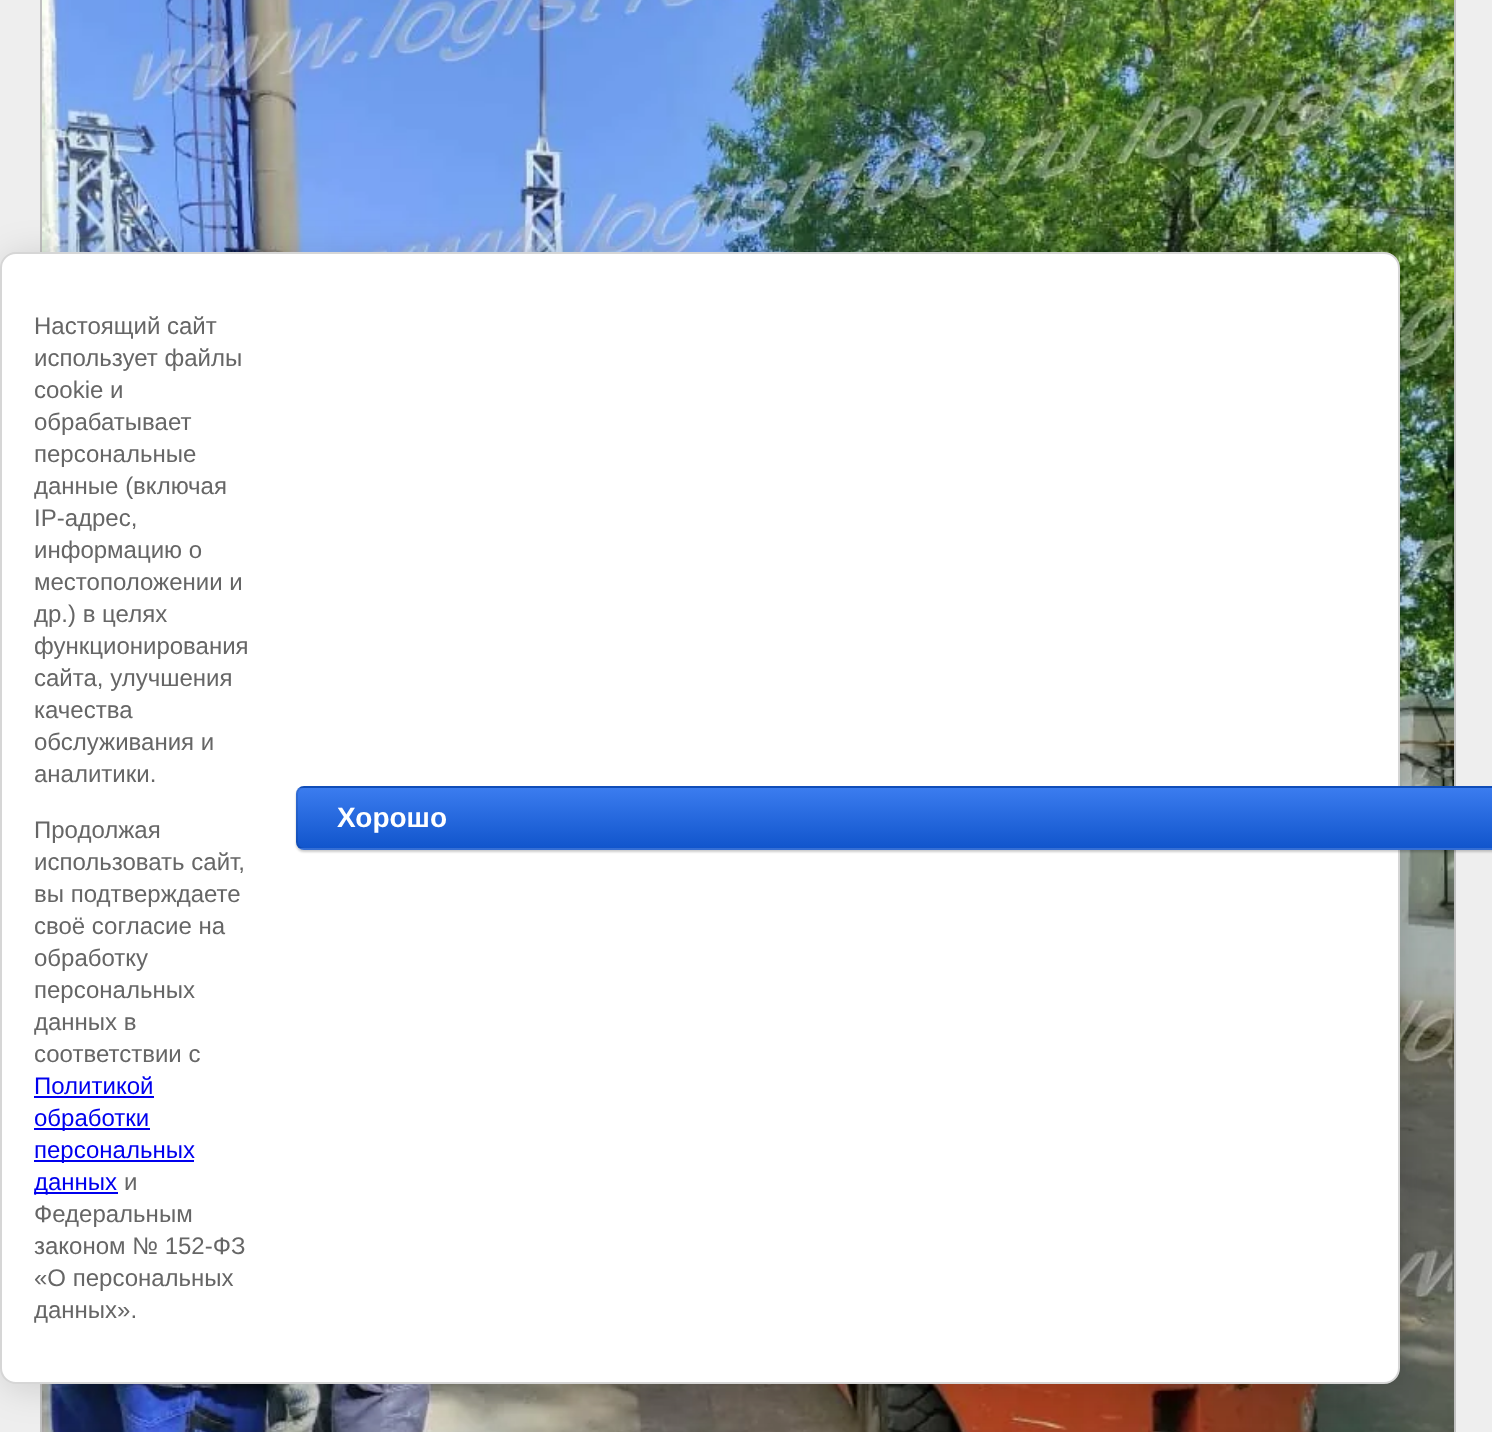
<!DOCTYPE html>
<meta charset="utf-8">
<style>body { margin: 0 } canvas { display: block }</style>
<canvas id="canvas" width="1492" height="1432"></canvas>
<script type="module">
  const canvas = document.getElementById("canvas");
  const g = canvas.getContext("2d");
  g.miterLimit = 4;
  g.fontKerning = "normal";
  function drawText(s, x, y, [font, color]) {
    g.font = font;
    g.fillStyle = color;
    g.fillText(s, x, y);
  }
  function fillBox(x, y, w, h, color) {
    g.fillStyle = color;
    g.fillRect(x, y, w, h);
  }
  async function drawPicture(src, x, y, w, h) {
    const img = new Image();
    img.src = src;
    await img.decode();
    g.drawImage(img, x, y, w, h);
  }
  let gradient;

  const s1 = ["24px Liberation Sans", "#666666"];
  const s2 = ["24px Liberation Sans", "#0000EE"];
  const s3 = ["bold 28px Liberation Sans", "#FFFFFF"];

  fillBox(0, 0, 1492, 1432, "#EEEEEE");
  g.strokeStyle = "#C0C0C0";
  g.lineWidth = 2;
  g.strokeRect(41, -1, 1414, 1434);
  await drawPicture("pic1.png", 42, 0, 1412, 1432);
  g.fillStyle = "rgba(0, 0, 0, 0.14)";
  g.filter = "blur(18px)";
  g.beginPath();
  g.roundRect(4, 256, 1400, 1132, 16);
  g.fill();
  g.filter = "none";
  g.fillStyle = "#FFFFFF";
  g.beginPath();
  g.roundRect(1, 253, 1398, 1130, 15);
  g.fill();
  g.strokeStyle = "#D6D6D6";
  g.stroke();
  drawText("Настоящий сайт", 34, 334, s1);
  drawText("использует файлы", 34, 366, s1);
  drawText("cookie и", 34, 398, s1);
  drawText("обрабатывает", 34, 430, s1);
  drawText("персональные", 34, 462, s1);
  drawText("данные (включая", 34, 494, s1);
  drawText("IP-адрес,", 34, 526, s1);
  drawText("информацию о", 34, 558, s1);
  drawText("местоположении и", 34, 590, s1);
  drawText("др.) в целях", 34, 622, s1);
  drawText("функционирования", 34, 654, s1);
  drawText("сайта, улучшения", 34, 686, s1);
  drawText("качества", 34, 718, s1);
  drawText("обслуживания и", 34, 750, s1);
  drawText("аналитики.", 34, 782, s1);
  drawText("Продолжая", 34, 838, s1);
  drawText("использовать сайт,", 34, 870, s1);
  drawText("вы подтверждаете", 34, 902, s1);
  drawText("своё согласие на", 34, 934, s1);
  drawText("обработку", 34, 966, s1);
  drawText("персональных", 34, 998, s1);
  drawText("данных в", 34, 1030, s1);
  drawText("соответствии с", 34, 1062, s1);
  drawText("Политикой", 34, 1094, s2);
  fillBox(34, 1096, 120, 2, "#0000EE");
  fillBox(34, 1128, 116, 2, "#0000EE");
  drawText("обработки", 34, 1126, s2);
  fillBox(34, 1160, 160, 2, "#0000EE");
  drawText("персональных", 34, 1158, s2);
  fillBox(34, 1192, 84, 2, "#0000EE");
  drawText("данных", 34, 1190, s2);
  drawText("и", 124, 1190, s1);
  drawText("Федеральным", 34, 1222, s1);
  drawText("законом № 152-ФЗ", 34, 1254, s1);
  drawText("«О персональных", 34, 1286, s1);
  drawText("данных».", 34, 1318, s1);
  g.fillStyle = "rgba(0, 0, 0, 0.2)";
  g.filter = "blur(1px)";
  g.beginPath();
  g.roundRect(296, 788, 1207, 64, 8);
  g.fill();
  g.filter = "none";
  g.save();
  g.beginPath();
  g.roundRect(296, 786, 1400, 64, 8);
  g.clip();
  gradient = g.createLinearGradient(996, 728, 996, 788);
  gradient.addColorStop(0, "#3B7CEF");
  gradient.addColorStop(1, "#1155CC");
  g.fillStyle = gradient;
  g.fillRect(296, 786, 1196, 2);
  gradient = g.createLinearGradient(996, 788, 996, 848);
  gradient.addColorStop(0, "#3B7CEF");
  gradient.addColorStop(1, "#1155CC");
  g.fillStyle = gradient;
  g.fillRect(296, 788, 1196, 60);
  gradient = g.createLinearGradient(996, 848, 996, 908);
  gradient.addColorStop(0, "#3B7CEF");
  gradient.addColorStop(1, "#1155CC");
  g.fillStyle = gradient;
  g.fillRect(296, 848, 1196, 2);
  g.restore();
  g.beginPath();
  g.roundRect(297, 787, 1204, 62, 7);
  g.strokeStyle = "rgba(0, 0, 0, 0.1)";
  g.stroke();
  drawText("Хорошо", 337, 827, s3);
</script>
